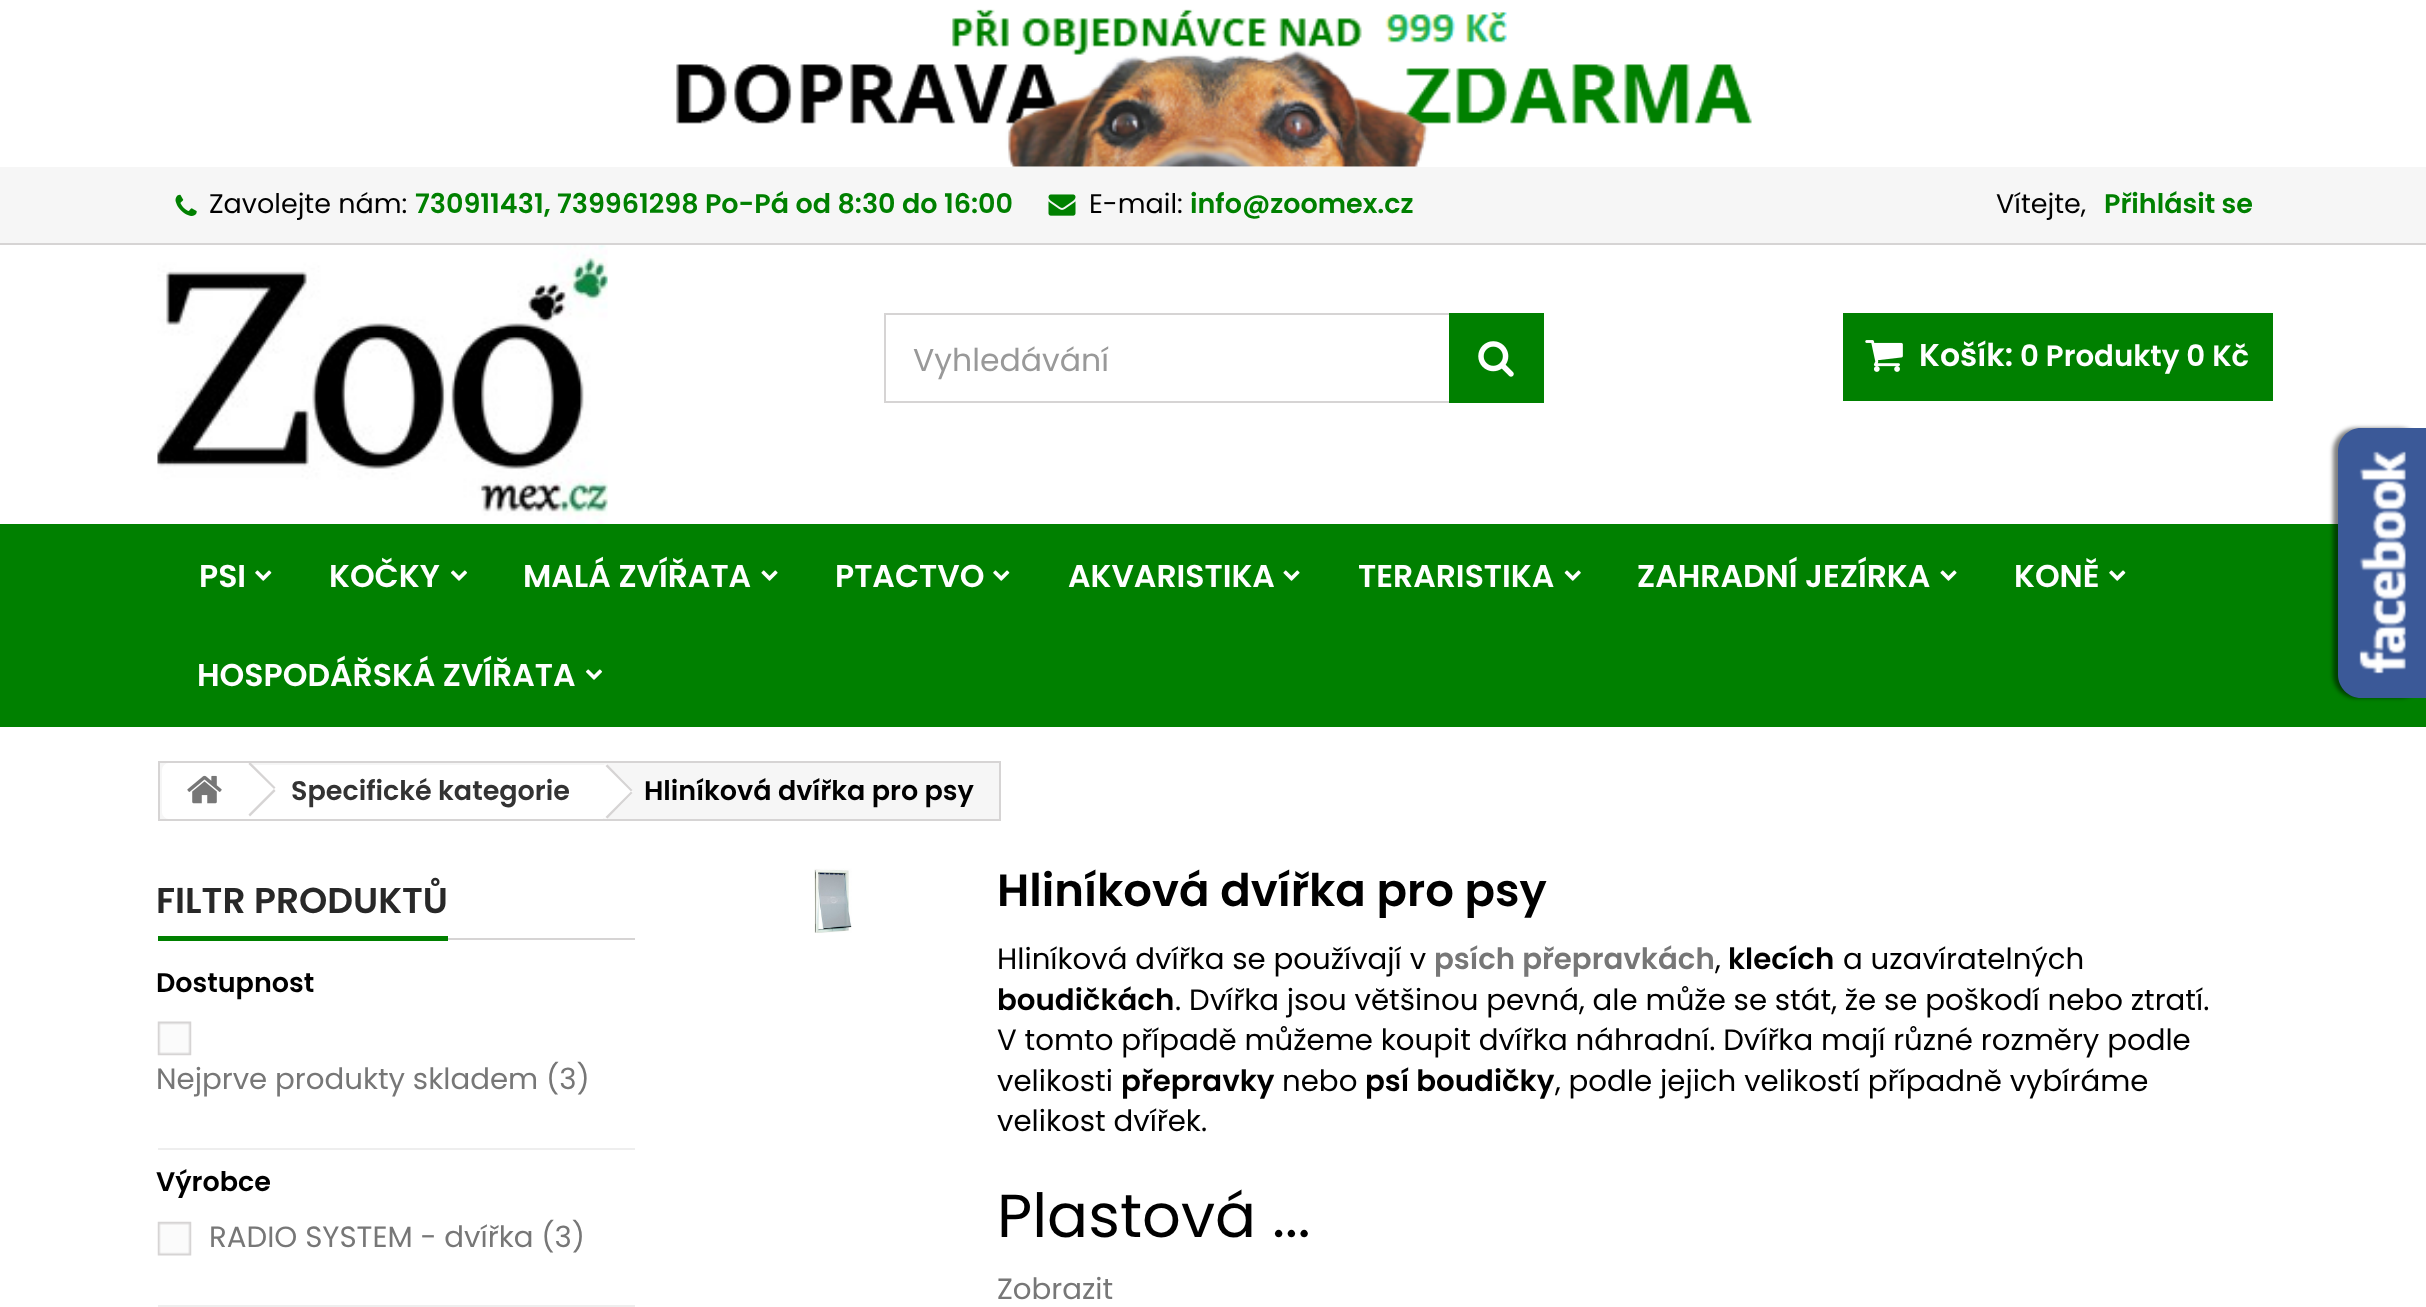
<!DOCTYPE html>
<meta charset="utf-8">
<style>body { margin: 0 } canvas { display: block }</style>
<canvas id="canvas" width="2426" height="1307"></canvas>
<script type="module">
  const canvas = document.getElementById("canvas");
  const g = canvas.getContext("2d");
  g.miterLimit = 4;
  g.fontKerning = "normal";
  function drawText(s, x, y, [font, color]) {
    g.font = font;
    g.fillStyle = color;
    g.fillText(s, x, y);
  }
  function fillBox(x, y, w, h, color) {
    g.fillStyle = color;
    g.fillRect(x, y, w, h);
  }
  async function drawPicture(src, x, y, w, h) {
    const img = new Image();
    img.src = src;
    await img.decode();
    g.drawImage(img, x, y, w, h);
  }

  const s1 = ["27px Poppins", "#000000"];
  const s2 = ["600 27px Poppins", "#008000"];
  const s3 = ["31.5px Poppins", "#999999"];
  const s4 = ["600 31.5px Poppins", "#FFFFFF"];
  const s5 = ["600 29.25px Poppins", "#FFFFFF"];
  const s6 = ["600 27px Poppins", "#333333"];
  const s7 = ["600 27px Poppins", "#000000"];
  const s8 = ["600 36px Poppins", "#282828"];
  const s9 = ["29.25px Poppins", "#777777"];
  const s10 = ["600 45px Poppins", "#000000"];
  const s11 = ["29.25px Poppins", "#000000"];
  const s12 = ["600 29.25px Poppins", "#777777"];
  const s13 = ["600 29.25px Poppins", "#000000"];
  const s14 = ["60.75px Poppins", "#000000"];

  fillBox(0, 0, 2426, 1307, "#FFFFFF");
  await drawPicture("pic1.png", 676, 9, 1076, 158);
  fillBox(0, 167, 2426, 76, "#F6F6F6");
  fillBox(0, 243, 2426, 2, "#D6D4D4");
  await drawPicture("pic2.png", 175, 194, 22, 22);
  drawText("Zavolejte nám:", 209, 213, s1);
  drawText("730911431, 739961298 Po-Pá od 8:30 do 16:00", 415, 213, s2);
  await drawPicture("pic3.png", 1048, 194, 28, 22);
  drawText("E-mail:", 1089, 213, s1);
  drawText("info@zoomex.cz", 1190, 213, s2);
  drawText("Vítejte,", 1996, 213, s1);
  drawText("Přihlásit se", 2104, 213, s2);
  await drawPicture("pic4.png", 157, 245, 451, 279);
  g.strokeStyle = "#D6D4D4";
  g.lineWidth = 2;
  g.strokeRect(885, 314, 658, 88);
  drawText("Vyhledávání", 913, 371, s3);
  fillBox(1449, 313, 95, 90, "#008000");
  await drawPicture("pic5.png", 1478, 341, 36, 36);
  fillBox(1843, 313, 430, 88, "#008000");
  await drawPicture("pic6.png", 1865, 340, 38, 32);
  drawText("Košík:", 1919, 366, s4);
  drawText("0 Produkty 0 Kč", 2020, 366, s5);
  fillBox(0, 524, 2426, 203, "#008000");
  drawText("PSI", 199, 587, s4);
  await drawPicture("pic7.png", 255, 570, 17, 11);
  drawText("KOČKY", 329, 587, s4);
  await drawPicture("pic8.png", 450, 570, 18, 11);
  drawText("MALÁ ZVÍŘATA", 523, 587, s4);
  await drawPicture("pic9.png", 761, 570, 17, 11);
  drawText("PTACTVO", 835, 587, s4);
  await drawPicture("pic7.png", 993, 570, 17, 11);
  drawText("AKVARISTIKA", 1068, 587, s4);
  await drawPicture("pic9.png", 1283, 570, 17, 11);
  drawText("TERARISTIKA", 1358, 587, s4);
  await drawPicture("pic10.png", 1564, 570, 17, 11);
  drawText("ZAHRADNÍ JEZÍRKA", 1637, 587, s4);
  await drawPicture("pic9.png", 1940, 570, 17, 11);
  drawText("KONĚ", 2014, 587, s4);
  await drawPicture("pic7.png", 2109, 570, 17, 11);
  drawText("HOSPODÁŘSKÁ ZVÍŘATA", 197, 686, s4);
  await drawPicture("pic8.png", 585, 669, 18, 11);
  g.fillStyle = "rgba(0, 0, 0, 0.5)";
  g.filter = "blur(2px)";
  g.beginPath();
  g.roundRect(2333, 428, 90, 270, 23);
  g.fill();
  g.filter = "none";
  g.fillStyle = "#3B5998";
  g.beginPath();
  g.moveTo(2361, 428);
  g.lineTo(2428, 428);
  g.lineTo(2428, 698);
  g.lineTo(2361, 698);
  g.bezierCurveTo(2348.5, 698, 2338, 687.5, 2338, 675);
  g.lineTo(2338, 451);
  g.bezierCurveTo(2338, 438.5, 2348.5, 428, 2361, 428);
  g.closePath();
  g.fill();
  await drawPicture("pic11.png", 2359, 451, 47, 223);
  g.fillStyle = "#F6F6F6";
  g.beginPath();
  g.rect(159, 762, 841, 58);
  g.fill();
  g.stroke();
  g.fillStyle = "#FFFFFF";
  g.beginPath();
  g.roundRect(162, 763, 86, 56, [7, 0, 0, 7]);
  g.fill();
  fillBox(248, 765, 355, 54, "#FFFFFF");
  g.save();
  g.beginPath();
  g.rect(160, 763, 839, 56);
  g.clip();
  g.beginPath();
  g.moveTo(252, 764);
  g.lineTo(274, 786);
  g.bezierCurveTo(276, 788, 276, 791, 274, 792);
  g.lineTo(252, 815);
  g.bezierCurveTo(250, 816, 247, 816, 245, 815);
  g.lineTo(223, 792);
  g.bezierCurveTo(221, 791, 221, 788, 223, 786);
  g.lineTo(245, 764);
  g.bezierCurveTo(247, 762, 250, 762, 252, 764);
  g.closePath();
  g.fill();
  g.restore();
  await drawPicture("pic12.png", 187, 775, 35, 29);
  g.fillStyle = "#D6D4D4";
  g.beginPath();
  g.moveTo(250, 762);
  g.lineTo(275.5, 787.5);
  g.lineTo(274, 789);
  g.lineTo(248.5, 764);
  g.closePath();
  g.moveTo(274, 789);
  g.lineTo(275.5, 791);
  g.lineTo(250, 816.5);
  g.lineTo(248.5, 814.5);
  g.closePath();
  g.fill();
  drawText("Specifické kategorie", 291, 800, s6);
  g.fillStyle = "#FFFFFF";
  g.beginPath();
  g.moveTo(609, 766);
  g.lineTo(631, 788);
  g.bezierCurveTo(633, 790, 633, 793, 631, 795);
  g.lineTo(609, 817);
  g.bezierCurveTo(607, 819, 604, 819, 602, 817);
  g.lineTo(580, 795);
  g.bezierCurveTo(578, 793, 578, 790, 580, 788);
  g.lineTo(602, 766);
  g.bezierCurveTo(604, 764, 607, 764, 609, 766);
  g.closePath();
  g.fill();
  g.fillStyle = "#D6D4D4";
  g.beginPath();
  g.moveTo(607.5, 764.5);
  g.lineTo(632.5, 790);
  g.lineTo(631, 791.5);
  g.lineTo(605.5, 766);
  g.closePath();
  g.fill();
  g.beginPath();
  g.moveTo(631, 791.5);
  g.lineTo(632.5, 793);
  g.lineTo(607.5, 818.5);
  g.lineTo(605.5, 817);
  g.closePath();
  g.fill();
  drawText("Hliníková dvířka pro psy", 644, 800, s7);
  fillBox(448, 938, 187, 2, "#D6D4D4");
  fillBox(158, 936, 290, 5, "#008000");
  drawText("FILTR PRODUKTŮ", 156, 913, s8);
  fillBox(158, 1148, 477, 2, "#EEEEEE");
  drawText("Dostupnost", 156, 992, s7);
  await drawPicture("pic13.png", 157, 1021, 35, 35);
  drawText("Nejprve produkty skladem (3)", 156, 1089, s9);
  fillBox(158, 1305, 477, 2, "#EEEEEE");
  drawText("Výrobce", 156, 1191, s7);
  await drawPicture("pic14.png", 157, 1221, 35, 35);
  drawText("RADIO SYSTEM - dvířka (3)", 209, 1247, s9);
  await drawPicture("pic15.png", 814, 868, 38, 65);
  drawText("Hliníková dvířka pro psy", 997, 906, s10);
  drawText("Hliníková dvířka se používají v", 997, 969, s11);
  drawText("psích přepravkách", 1434, 969, s12);
  drawText(",", 1715, 969, s11);
  drawText("klecích", 1728, 969, s13);
  drawText("a uzavíratelných", 1843, 969, s11);
  drawText("boudičkách", 997, 1010, s13);
  drawText(". Dvířka jsou většinou pevná, ale může se stát, že se poškodí nebo ztratí.", 1175, 1010, s11);
  drawText("V tomto případě můžeme koupit dvířka náhradní. Dvířka mají různé rozměry podle", 997, 1050, s11);
  drawText("velikosti", 997, 1091, s11);
  drawText("přepravky", 1121, 1091, s13);
  drawText("nebo", 1282, 1091, s11);
  drawText("psí boudičky", 1365, 1091, s13);
  drawText(", podle jejich velikostí případně vybíráme", 1555, 1091, s11);
  drawText("velikost dvířek.", 997, 1131, s11);
  drawText("Plastová ...", 997, 1237, s14);
  drawText("Zobrazit", 997, 1299, s9);
</script>
